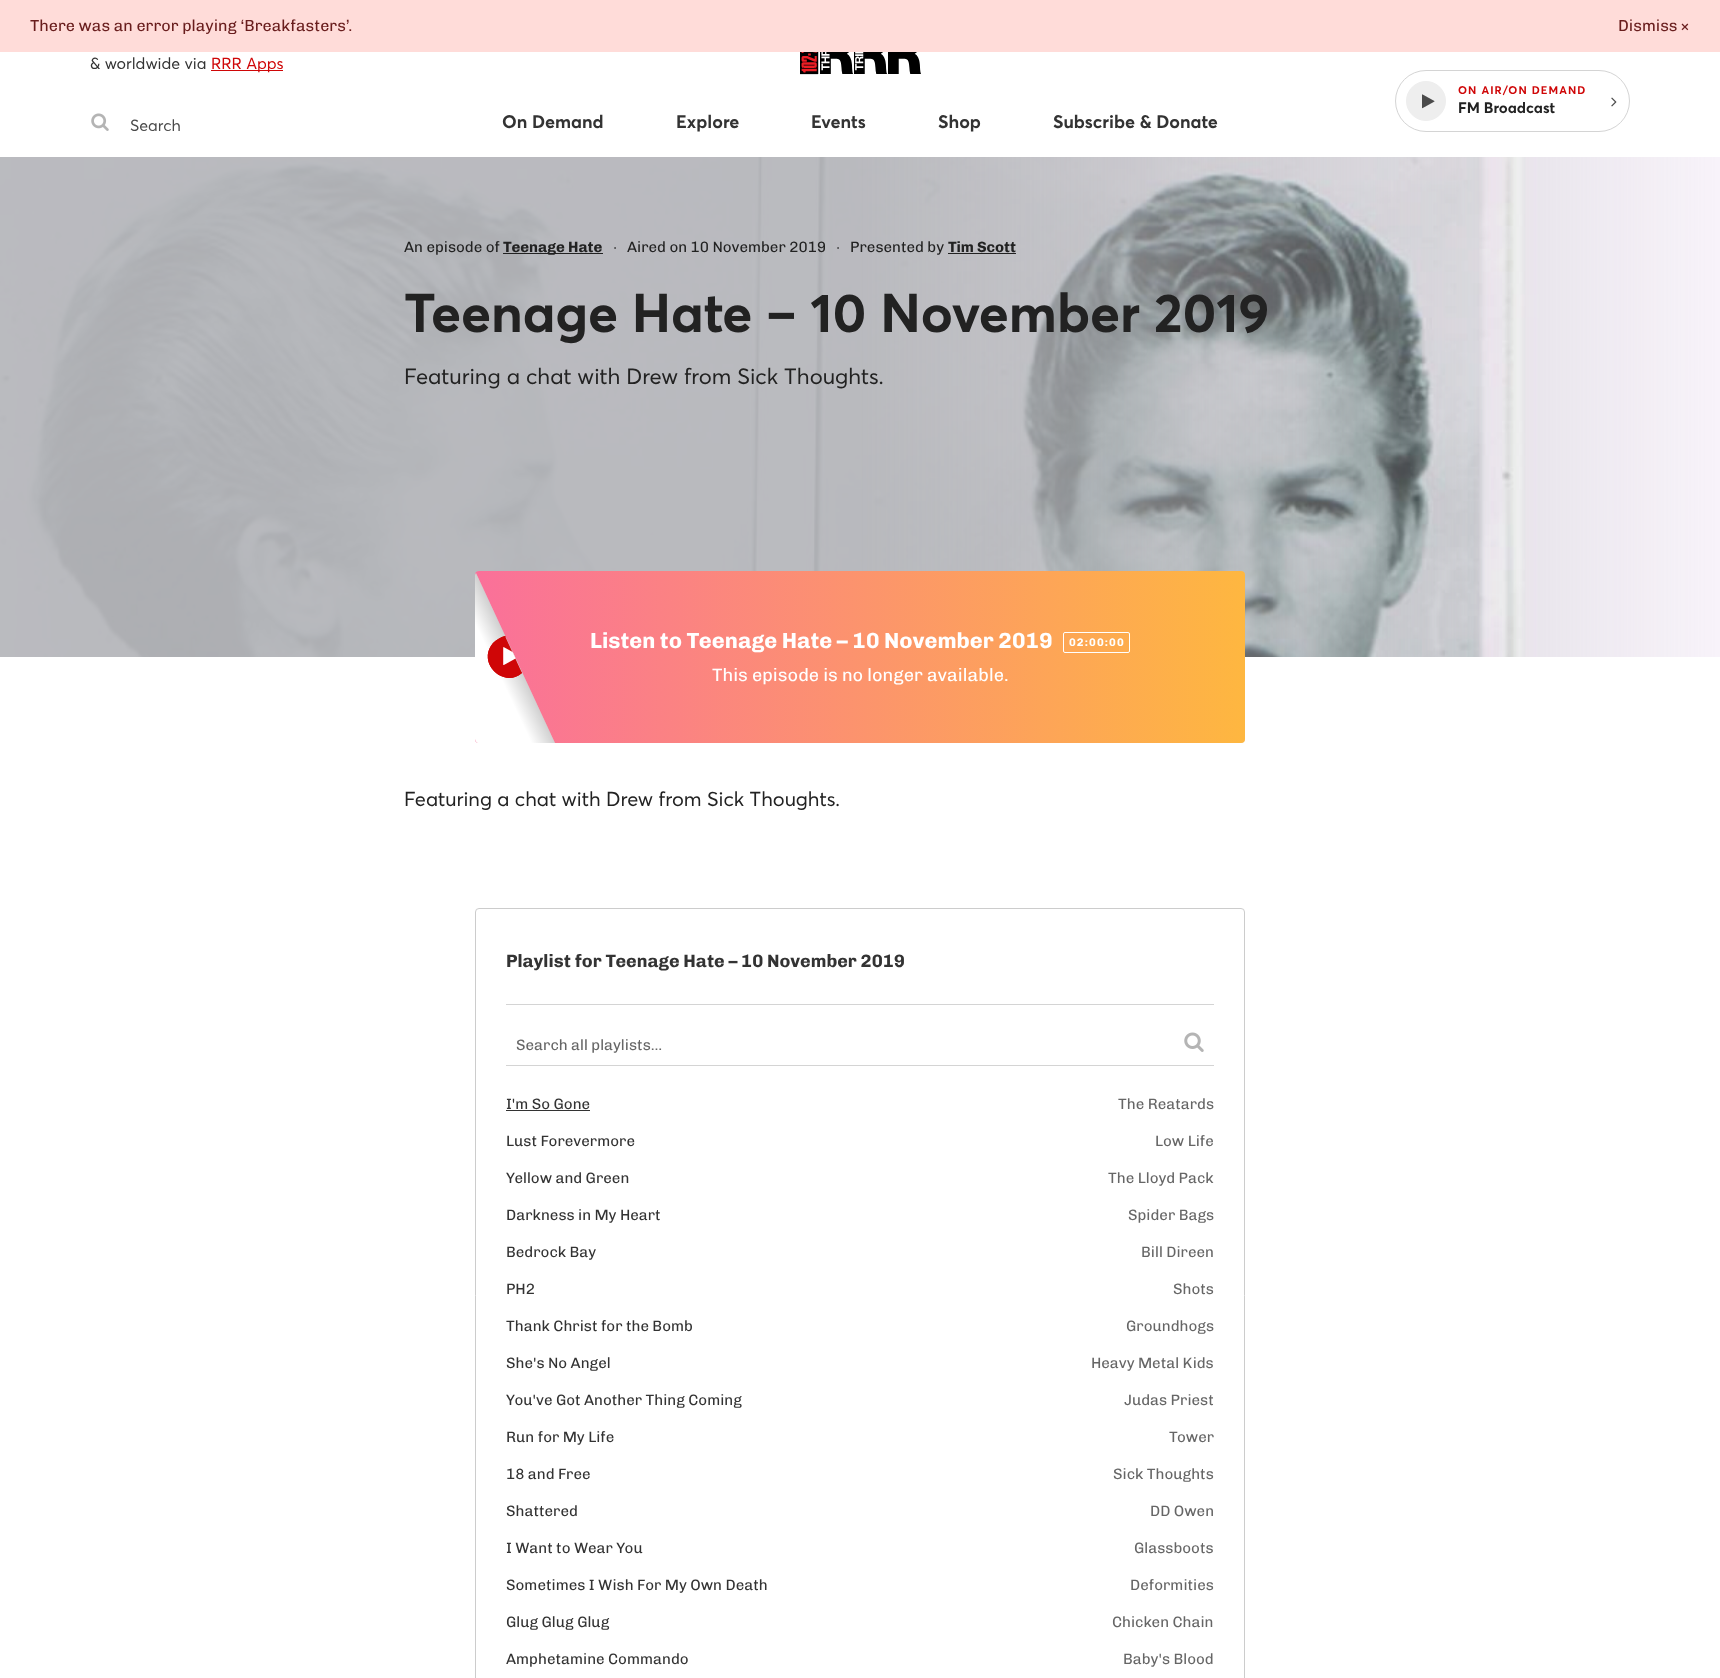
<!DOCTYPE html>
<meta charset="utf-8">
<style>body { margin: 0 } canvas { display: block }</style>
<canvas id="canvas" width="1720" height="1678"></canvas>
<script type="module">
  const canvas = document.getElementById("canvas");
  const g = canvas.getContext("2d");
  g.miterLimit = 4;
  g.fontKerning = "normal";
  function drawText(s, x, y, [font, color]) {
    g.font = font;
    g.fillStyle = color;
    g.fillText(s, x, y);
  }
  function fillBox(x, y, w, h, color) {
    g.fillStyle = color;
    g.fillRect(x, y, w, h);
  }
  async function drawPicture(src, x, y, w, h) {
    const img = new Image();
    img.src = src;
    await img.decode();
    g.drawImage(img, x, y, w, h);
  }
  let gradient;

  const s1 = ["16px Chivo", "#691D1D"];
  const s2 = ["16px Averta", "#333333"];
  const s3 = ["16px Averta", "#CF0607"];
  const s4 = ["16px Averta", "#4A4A4A"];
  const s5 = ["bold 11px Averta", "#CF0607"];
  const s6 = ["bold 15px Averta", "#222222"];
  const s7 = ["bold 18px Averta", "#333333"];
  const s8 = ["15px Chivo", "#222222"];
  const s9 = ["bold 15px Chivo", "#222222"];
  const s10 = ["15px Liberation Sans", "#222222"];
  const s11 = ["bold 54px Averta", "#222222"];
  const s12 = ["22px Averta", "#222222"];
  const s13 = ["bold 22px Chivo", "#FFFFFF"];
  const s14 = ["bold 11px Chivo", "#FFFFFF"];
  const s15 = ["18px Chivo", "#FFFFFF"];
  const s16 = ["20px Averta", "#222222"];
  const s17 = ["bold 18px Chivo", "#333333"];
  const s18 = ["15px Chivo", "#666666"];
  const s19 = ["15px Chivo", "#333333"];

  fillBox(0, 0, 1720, 1678, "#FFFFFF");
  fillBox(0, 0, 1720, 52, "#FFDCD9");
  drawText("There was an error playing ‘Breakfasters’.", 30, 31, s1);
  drawText("Dismiss", 1618, 31, s1);
  drawText("×", 1680, 31, s1);
  drawText("& worldwide via", 90, 69, s2);
  fillBox(211, 70, 72, 1, "#CF0607");
  drawText("RRR Apps", 211, 69, s3);
  await drawPicture("pic1.png", 91, 113, 18, 18);
  drawText("Search", 130, 131, s4);
  await drawPicture("pic2.png", 800, 52, 121, 23);
  g.beginPath();
  g.roundRect(1395.5, 70.5, 234, 61, 30.5);
  g.strokeStyle = "#D4D4D4";
  g.stroke();
  g.fillStyle = "#EEEEEE";
  g.beginPath();
  g.arc(1426, 101, 19.5, 0, Math.PI * 2);
  g.fill();
  g.strokeStyle = "#EEEEEE";
  g.stroke();
  await drawPicture("pic3.png", 1422, 94, 13, 15);
  g.letterSpacing = "1.1px";
  drawText("ON AIR/ON DEMAND", 1458, 94, s5);
  g.letterSpacing = "0px";
  drawText("FM Broadcast", 1458, 113, s6);
  await drawPicture("pic4.png", 1611, 97, 6, 10);
  drawText("On Demand", 502, 128, s7);
  drawText("Explore", 676, 128, s7);
  drawText("Events", 811, 128, s7);
  drawText("Shop", 938, 128, s7);
  drawText("Subscribe & Donate", 1053, 128, s7);
  await drawPicture("pic5.png", 0, 157, 1720, 500);
  drawText("An episode of", 404, 252, s8);
  fillBox(503, 253, 100, 1, "#222222");
  drawText("Teenage Hate", 503, 252, s9);
  drawText("∙", 613, 252, s10);
  drawText("Aired on 10 November 2019", 627, 252, s8);
  drawText("∙", 836, 252, s10);
  drawText("Presented by", 850, 252, s8);
  drawText("Tim Scott", 948, 252, s9);
  fillBox(948, 253, 68, 1, "#222222");
  drawText("Teenage Hate – 10 November 2019", 404, 332, s11);
  drawText("Featuring a chat with Drew from Sick Thoughts.", 404, 384, s12);
  g.beginPath();
  g.roundRect(475.5, 571.5, 769, 171, 3.5);
  g.strokeStyle = "#CCCCCC";
  g.stroke();
  gradient = g.createLinearGradient(475, 657, 1245, 657);
  gradient.addColorStop(0, "#FA709A");
  gradient.addColorStop(1, "#FEB740");
  g.fillStyle = gradient;
  g.beginPath();
  g.roundRect(475, 571, 770, 172, 4);
  g.fill();
  g.fillStyle = "#FFFFFF";
  g.beginPath();
  g.moveTo(475, 575);
  g.lineTo(475, 739);
  g.bezierCurveTo(475, 741, 477, 743, 478, 743);
  g.lineTo(555, 743);
  g.lineTo(476, 573);
  g.closePath();
  g.fill();
  gradient = g.createLinearGradient(449, 688, 581, 626);
  gradient.addColorStop(0.35, "rgba(0, 0, 0, 0)");
  gradient.addColorStop(1, "rgba(0, 0, 0, 0.8)");
  g.fillStyle = gradient;
  g.beginPath();
  g.moveTo(475, 575);
  g.lineTo(475, 739);
  g.bezierCurveTo(475, 741, 477, 743, 478, 743);
  g.lineTo(555, 743);
  g.lineTo(476, 573);
  g.closePath();
  g.fill();
  g.fillStyle = "#CF0607";
  g.beginPath();
  g.moveTo(505, 636);
  g.lineTo(522, 673);
  g.bezierCurveTo(504, 689, 476, 663, 493, 643);
  g.bezierCurveTo(496, 640, 501, 637, 505, 636);
  g.closePath();
  g.fill();
  g.beginPath();
  g.moveTo(505, 636);
  g.bezierCurveTo(501, 637, 496, 640, 493, 643);
  g.bezierCurveTo(476, 663, 504, 689, 522, 673);
  g.lineTo(522, 672);
  g.bezierCurveTo(504, 688, 478, 663, 494, 644);
  g.bezierCurveTo(497, 640, 501, 638, 506, 637);
  g.closePath();
  g.fill();
  await drawPicture("pic6.png", 503, 647, 13, 18);
  drawText("Listen to Teenage Hate – 10 November 2019", 590, 648, s13);
  g.beginPath();
  g.roundRect(1063.5, 632.5, 66, 20, 1.5);
  g.strokeStyle = "#FFFFFF";
  g.stroke();
  g.letterSpacing = "1.1px";
  drawText("02:00:00", 1069, 646, s14);
  g.letterSpacing = "0px";
  drawText("This episode is no longer available.", 712, 681, s15);
  drawText("Featuring a chat with Drew from Sick Thoughts.", 404, 806, s16);
  g.beginPath();
  g.roundRect(475.5, 908.5, 769, 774, 3.5);
  g.strokeStyle = "#CCCCCC";
  g.stroke();
  drawText("Playlist for Teenage Hate – 10 November 2019", 506, 967, s17);
  fillBox(506, 1004, 708, 1, "#D4D4D4");
  fillBox(506, 1065, 708, 1, "#D4D4D4");
  drawText("Search all playlists…", 516, 1050, s18);
  await drawPicture("pic7.png", 1184, 1032, 20, 20);
  drawText("I'm So Gone", 506, 1109, s19);
  fillBox(506, 1110, 84, 1, "#333333");
  drawText("The Reatards", 1118, 1109, s18);
  drawText("Lust Forevermore", 506, 1146, s19);
  drawText("Low Life", 1155, 1146, s18);
  drawText("Yellow and Green", 506, 1183, s19);
  drawText("The Lloyd Pack", 1108, 1183, s18);
  drawText("Darkness in My Heart", 506, 1220, s19);
  drawText("Spider Bags", 1128, 1220, s18);
  drawText("Bedrock Bay", 506, 1257, s19);
  drawText("Bill Direen", 1141, 1257, s18);
  drawText("PH2", 506, 1294, s19);
  drawText("Shots", 1173, 1294, s18);
  drawText("Thank Christ for the Bomb", 506, 1331, s19);
  drawText("Groundhogs", 1126, 1331, s18);
  drawText("She's No Angel", 506, 1368, s19);
  drawText("Heavy Metal Kids", 1091, 1368, s18);
  drawText("You've Got Another Thing Coming", 506, 1405, s19);
  drawText("Judas Priest", 1124, 1405, s18);
  drawText("Run for My Life", 506, 1442, s19);
  drawText("Tower", 1169, 1442, s18);
  drawText("18 and Free", 506, 1479, s19);
  drawText("Sick Thoughts", 1113, 1479, s18);
  drawText("Shattered", 506, 1516, s19);
  drawText("DD Owen", 1150, 1516, s18);
  drawText("I Want to Wear You", 506, 1553, s19);
  drawText("Glassboots", 1134, 1553, s18);
  drawText("Sometimes I Wish For My Own Death", 506, 1590, s19);
  drawText("Deformities", 1130, 1590, s18);
  drawText("Glug Glug Glug", 506, 1627, s19);
  drawText("Chicken Chain", 1112, 1627, s18);
  drawText("Amphetamine Commando", 506, 1664, s19);
  drawText("Baby's Blood", 1123, 1664, s18);
</script>
